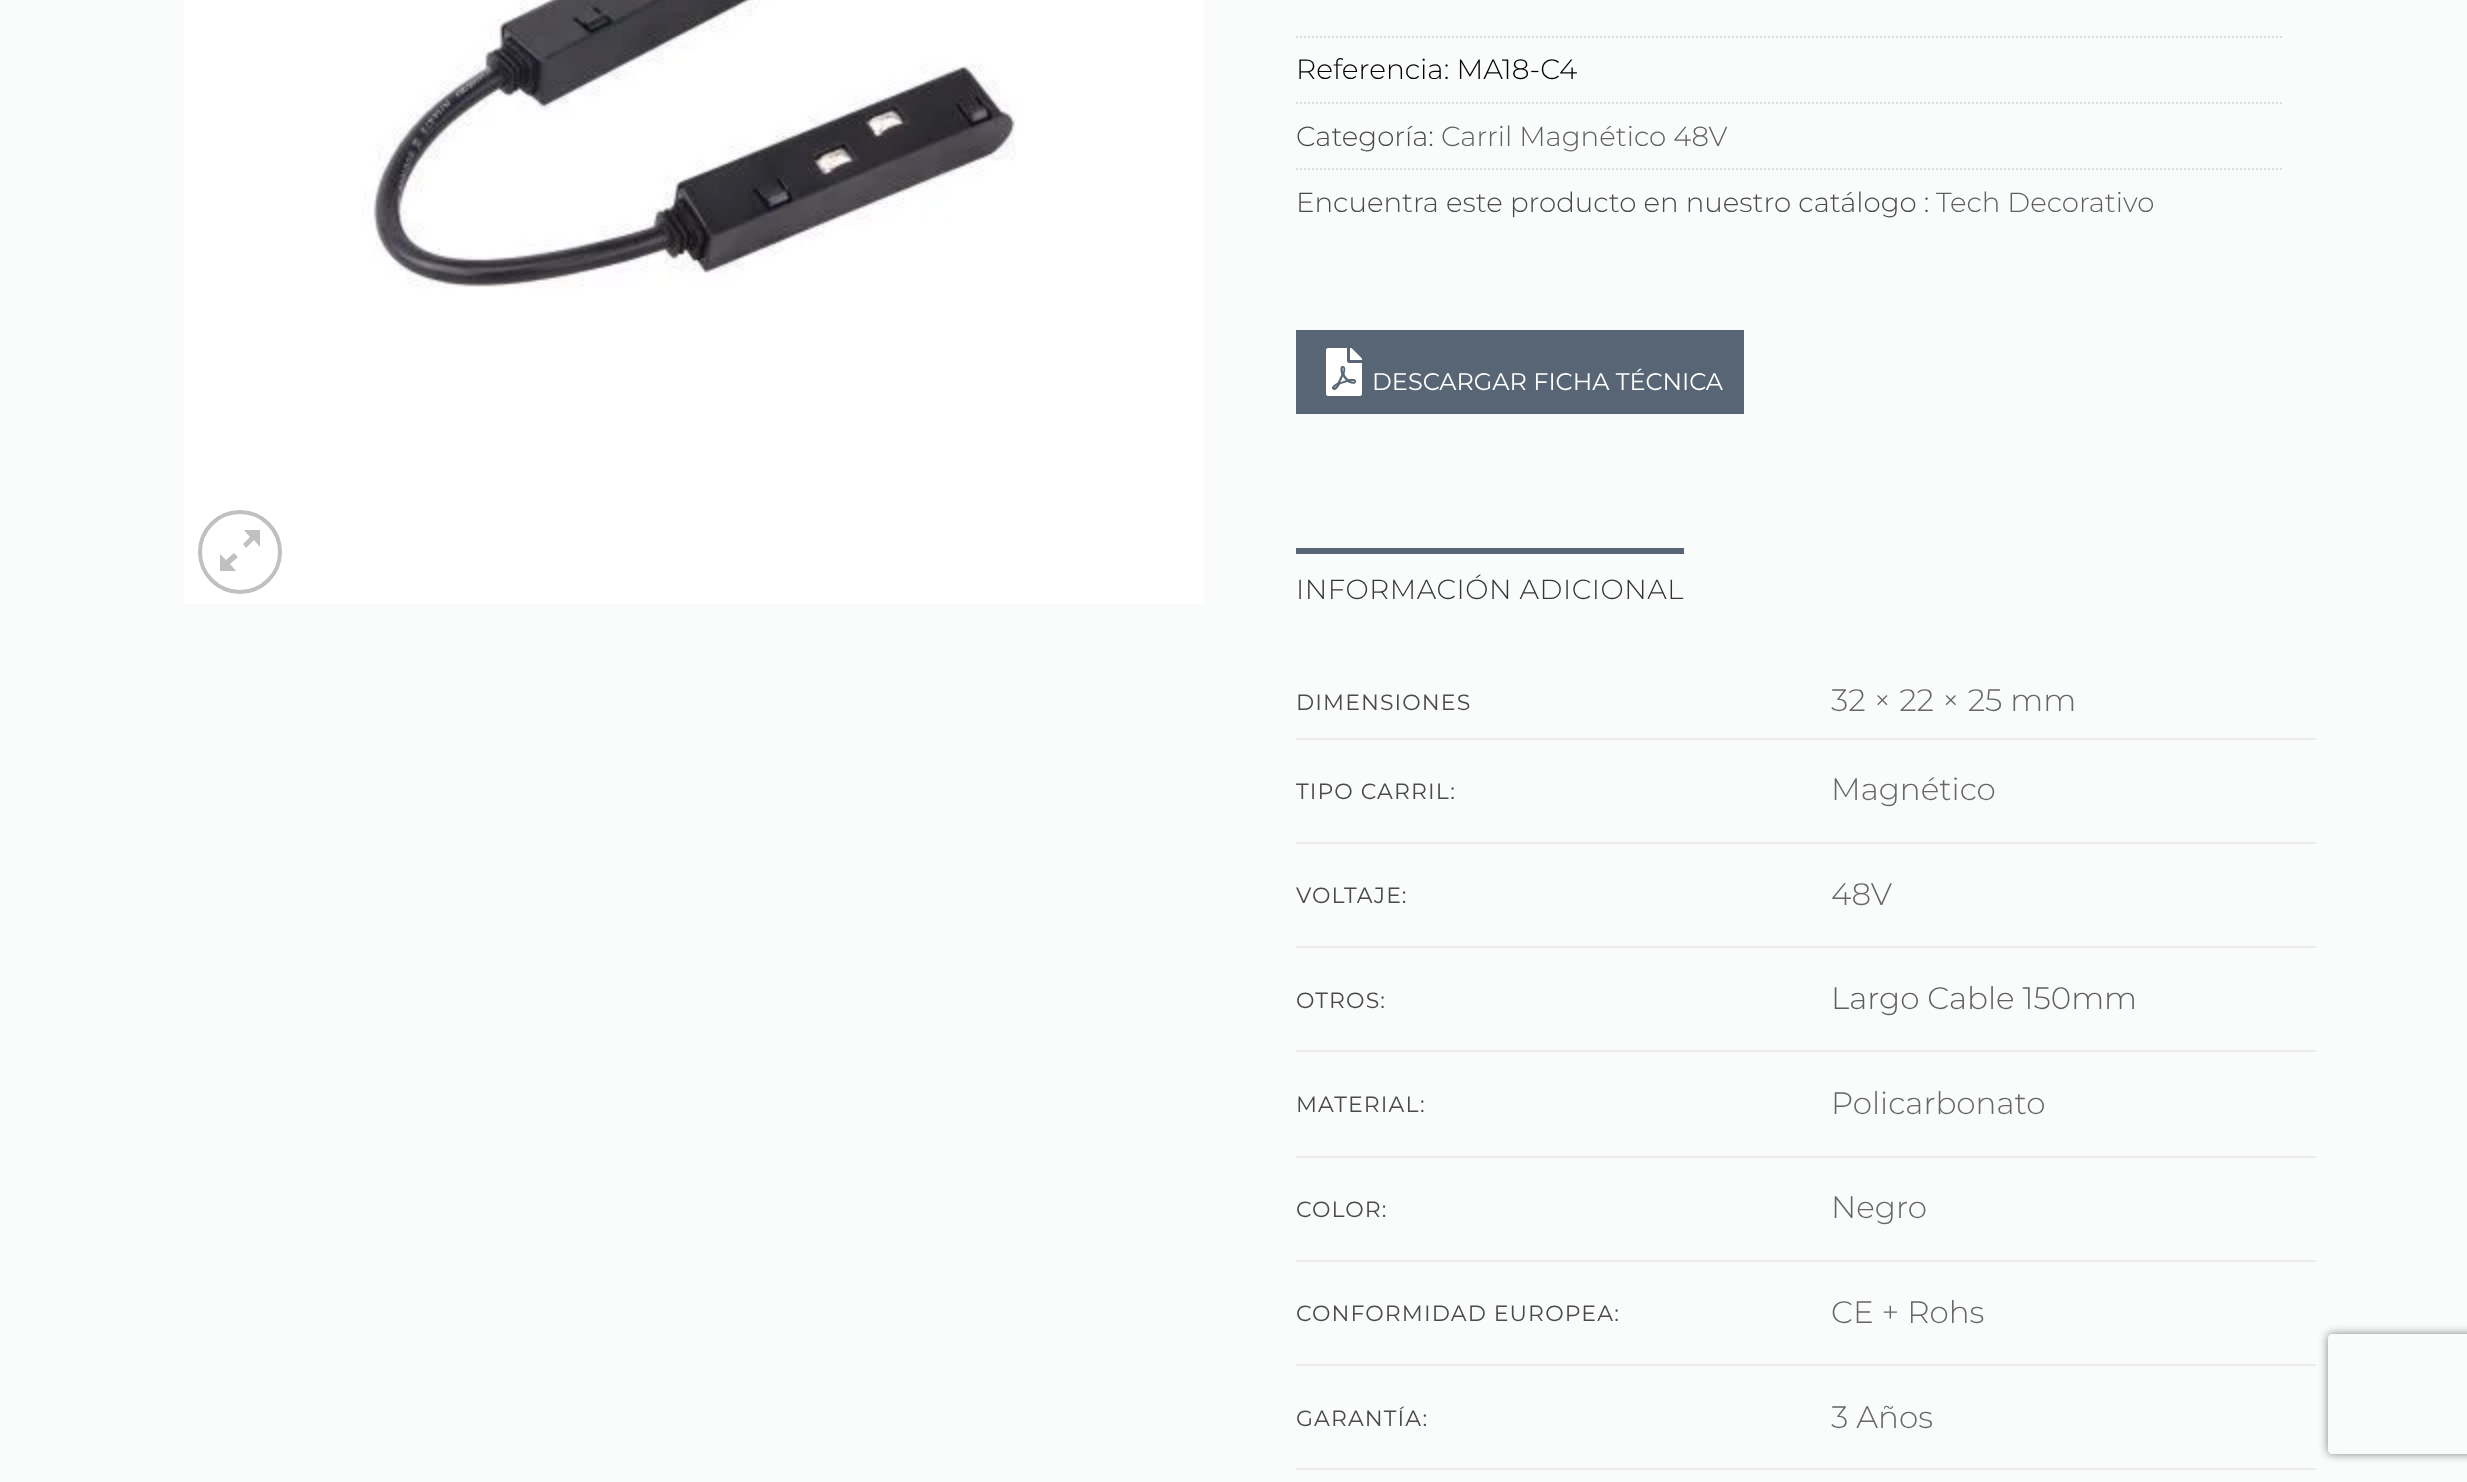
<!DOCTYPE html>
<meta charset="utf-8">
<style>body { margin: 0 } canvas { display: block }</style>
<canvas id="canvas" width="2467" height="1482"></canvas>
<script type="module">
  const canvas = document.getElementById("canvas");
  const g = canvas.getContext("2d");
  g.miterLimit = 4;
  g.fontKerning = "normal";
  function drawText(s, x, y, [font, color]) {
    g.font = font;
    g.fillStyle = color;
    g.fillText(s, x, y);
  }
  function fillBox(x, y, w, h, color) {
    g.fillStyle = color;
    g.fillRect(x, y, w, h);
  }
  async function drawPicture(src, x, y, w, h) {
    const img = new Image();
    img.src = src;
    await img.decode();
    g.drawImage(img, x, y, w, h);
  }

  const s1 = ["300 28px Montserrat", "#000000"];
  const s2 = ["300 27.65px Montserrat", "#4A4A4A"];
  const s3 = ["300 27.65px Montserrat", "#5F5F5F"];
  const s4 = ["24px Montserrat", "#FFFFFF"];
  const s5 = ["300 27.65px Montserrat", "#353535"];
  const s6 = ["22px Montserrat", "#4A4A4A"];
  const s7 = ["300 31px Montserrat", "#666666"];
  const s8 = ["300 31px Montserrat", "#5F5F5F"];

  fillBox(0, 0, 2467, 1482, "#FAFBFB");
  await drawPicture("pic1.png", 184, 0, 1020, 604);
  g.beginPath();
  g.arc(240, 552, 40, 0, Math.PI * 2);
  g.strokeStyle = "#C0C0C0";
  g.lineWidth = 4;
  g.stroke();
  g.fillStyle = "#C0C0C0";
  g.beginPath();
  g.moveTo(260, 530);
  g.lineTo(260, 547);
  g.lineTo(254, 540);
  g.lineTo(246, 548);
  g.lineTo(243, 544);
  g.lineTo(250, 537);
  g.lineTo(244, 530);
  g.closePath();
  g.moveTo(238, 557);
  g.lineTo(230, 564);
  g.lineTo(236, 571);
  g.lineTo(220, 571);
  g.lineTo(220, 554);
  g.lineTo(226, 560);
  g.lineTo(234, 553);
  g.closePath();
  g.fill();
  g.beginPath();
  g.moveTo(1296, 37);
  g.lineTo(2284, 37);
  g.strokeStyle = "#DDDDDD";
  g.lineWidth = 2;
  g.setLineDash([2, 2]);
  g.stroke();
  drawText("Referencia: MA18-C4", 1296, 79, s1);
  g.beginPath();
  g.moveTo(1296, 103);
  g.lineTo(2284, 103);
  g.stroke();
  drawText("Categoría:", 1296, 146, s2);
  drawText("Carril Magnético 48V", 1441, 146, s3);
  g.beginPath();
  g.moveTo(1296, 169);
  g.lineTo(2284, 169);
  g.stroke();
  drawText("Encuentra este producto en nuestro catálogo :", 1296, 212, s2);
  drawText("Tech Decorativo", 1936, 212, s3);
  fillBox(1296, 330, 448, 84, "#576574");
  await drawPicture("pic2.png", 1326, 348, 36, 48);
  drawText("DESCARGAR FICHA TÉCNICA", 1372, 390, s4);
  fillBox(1296, 548, 388, 6, "#576574");
  g.letterSpacing = "0.55px";
  drawText("INFORMACIÓN ADICIONAL", 1296, 599, s5);
  fillBox(1296, 738, 1020, 2, "#ECECEC");
  g.letterSpacing = "1.1px";
  drawText("DIMENSIONES", 1296, 710, s6);
  g.letterSpacing = "0px";
  drawText("32 × 22 × 25 mm", 1831, 711, s7);
  fillBox(1296, 842, 1020, 2, "#ECECEC");
  g.letterSpacing = "1.1px";
  drawText("TIPO CARRIL:", 1296, 799, s6);
  g.letterSpacing = "0px";
  drawText("Magnético", 1831, 800, s7);
  fillBox(1296, 946, 1020, 2, "#ECECEC");
  g.letterSpacing = "1.1px";
  drawText("VOLTAJE:", 1296, 903, s6);
  g.letterSpacing = "0px";
  drawText("48V", 1831, 905, s7);
  fillBox(1296, 1050, 1020, 2, "#ECECEC");
  g.letterSpacing = "1.1px";
  drawText("OTROS:", 1296, 1008, s6);
  g.letterSpacing = "0px";
  drawText("Largo Cable 150mm", 1831, 1009, s8);
  fillBox(1296, 1156, 1020, 2, "#ECECEC");
  g.letterSpacing = "1.1px";
  drawText("MATERIAL:", 1296, 1112, s6);
  g.letterSpacing = "0px";
  drawText("Policarbonato", 1831, 1114, s7);
  fillBox(1296, 1260, 1020, 2, "#ECECEC");
  g.letterSpacing = "1.1px";
  drawText("COLOR:", 1296, 1217, s6);
  g.letterSpacing = "0px";
  drawText("Negro", 1831, 1218, s7);
  g.save();
  g.beginPath();
  g.moveTo(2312, 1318);
  g.lineTo(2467, 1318);
  g.lineTo(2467, 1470);
  g.lineTo(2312, 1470);
  g.closePath();
  g.moveTo(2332, 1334);
  g.lineTo(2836, 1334);
  g.bezierCurveTo(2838, 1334, 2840, 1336, 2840, 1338);
  g.lineTo(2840, 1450);
  g.bezierCurveTo(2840, 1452, 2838, 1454, 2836, 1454);
  g.lineTo(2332, 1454);
  g.bezierCurveTo(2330, 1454, 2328, 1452, 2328, 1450);
  g.lineTo(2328, 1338);
  g.bezierCurveTo(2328, 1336, 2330, 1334, 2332, 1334);
  g.closePath();
  g.clip("evenodd");
  g.fillStyle = "#808080";
  g.filter = "blur(5px)";
  g.beginPath();
  g.roundRect(2328, 1334, 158, 120, 4);
  g.fill();
  g.filter = "none";
  g.restore();
  fillBox(1296, 1364, 1020, 2, "#ECECEC");
  g.letterSpacing = "1.1px";
  drawText("CONFORMIDAD EUROPEA:", 1296, 1321, s6);
  g.letterSpacing = "0px";
  drawText("CE + Rohs", 1831, 1323, s7);
  fillBox(1296, 1468, 1020, 2, "#ECECEC");
  g.letterSpacing = "1.1px";
  drawText("GARANTÍA:", 1296, 1426, s6);
  g.letterSpacing = "0px";
  drawText("3 Años", 1831, 1428, s7);
</script>
